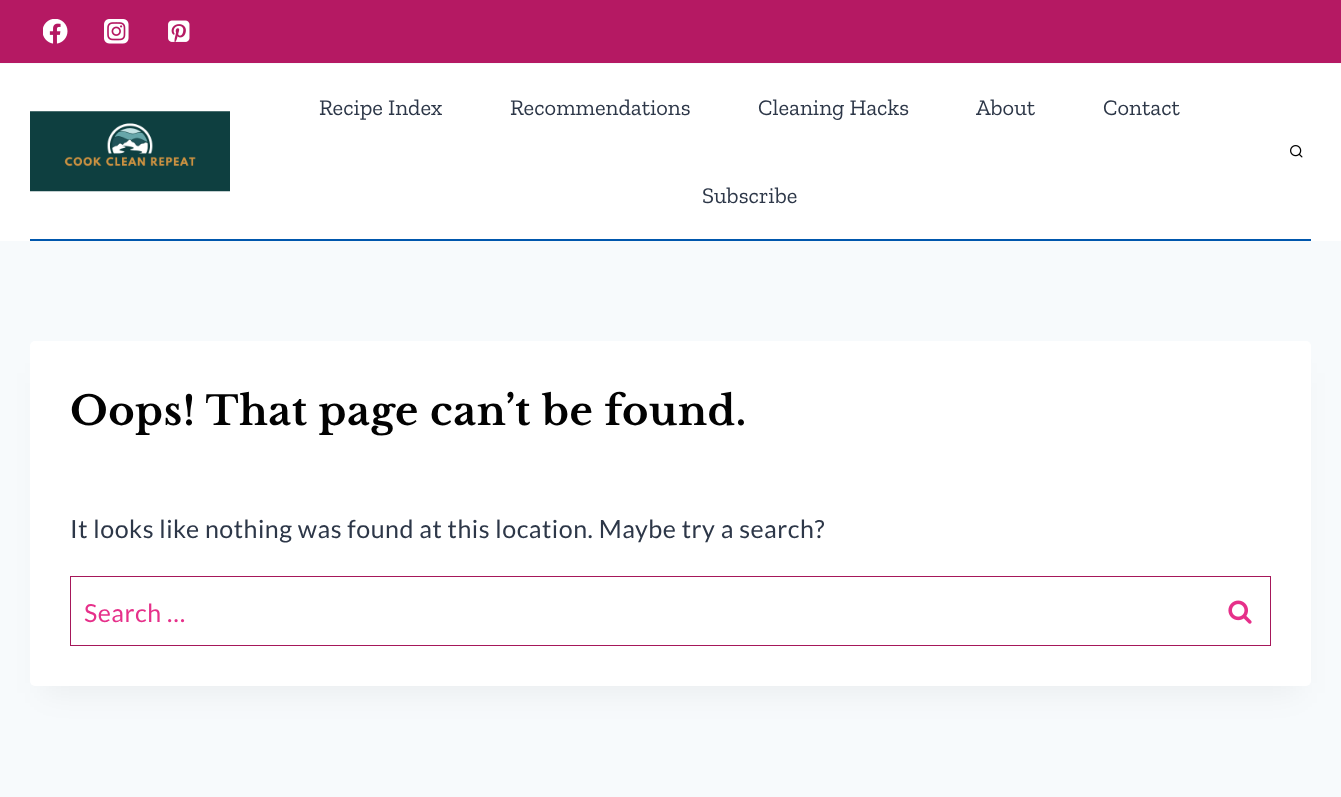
<!DOCTYPE html>
<meta charset="utf-8">
<style>body { margin: 0 } canvas { display: block }</style>
<canvas id="canvas" width="1341" height="797"></canvas>
<script type="module">
  const canvas = document.getElementById("canvas");
  const g = canvas.getContext("2d");
  g.miterLimit = 4;
  g.fontKerning = "normal";
  function drawText(s, x, y, [font, color]) {
    g.font = font;
    g.fillStyle = color;
    g.fillText(s, x, y);
  }
  function fillBox(x, y, w, h, color) {
    g.fillStyle = color;
    g.fillRect(x, y, w, h);
  }
  function fillRounded(x, y, w, h, r, color) {
    g.fillStyle = color;
    g.beginPath();
    g.roundRect(x, y, w, h, r);
    g.fill();
  }
  async function drawPicture(src, x, y, w, h) {
    const img = new Image();
    img.src = src;
    await img.decode();
    g.drawImage(img, x, y, w, h);
  }

  const s1 = ["22.5px Zilla Slab", "#2D3748"];
  const s2 = ["bold 40px Libre Baskerville", "#020202"];
  const s3 = ["25px Lato", "#2D3748"];
  const s4 = ["25px Lato", "#E6308A"];

  fillBox(0, 0, 1341, 797, "#F7FAFC");
  fillBox(0, 64, 1341, 177, "#FFFFFF");
  fillBox(0, 0, 1341, 63, "#B51963");
  await drawPicture("pic1.png", 43, 19, 25, 25);
  await drawPicture("pic2.png", 104, 19, 25, 25);
  await drawPicture("pic3.png", 168, 20, 22, 22);
  await drawPicture("pic4.png", 30, 111, 200, 81);
  drawText("Recipe Index", 319, 115, s1);
  drawText("Recommendations", 510, 115, s1);
  drawText("Cleaning Hacks", 758, 115, s1);
  drawText("About", 976, 115, s1);
  drawText("Contact", 1103, 115, s1);
  drawText("Subscribe", 702, 203, s1);
  await drawPicture("pic5.png", 1290, 145, 13, 13);
  fillBox(30, 239, 1281, 2, "#0057AD");
  g.fillStyle = "rgba(0, 0, 0, 0.05)";
  g.filter = "blur(15.5px)";
  g.beginPath();
  g.rect(43, 373, 1256, 320);
  g.fill();
  g.filter = "none";
  fillRounded(30, 341, 1281, 345, 5, "#FFFFFF");
  g.letterSpacing = "0.5px";
  drawText("Oops! That page can’t be found.", 70, 425, s2);
  drawText("It looks like nothing was found at this location. Maybe try a search?", 70, 538, s3);
  g.strokeStyle = "#A6175A";
  g.strokeRect(70.5, 576.5, 1200, 69);
  drawText("Search …", 84, 622, s4);
  await drawPicture("pic6.png", 1228, 600, 24, 24);
</script>
